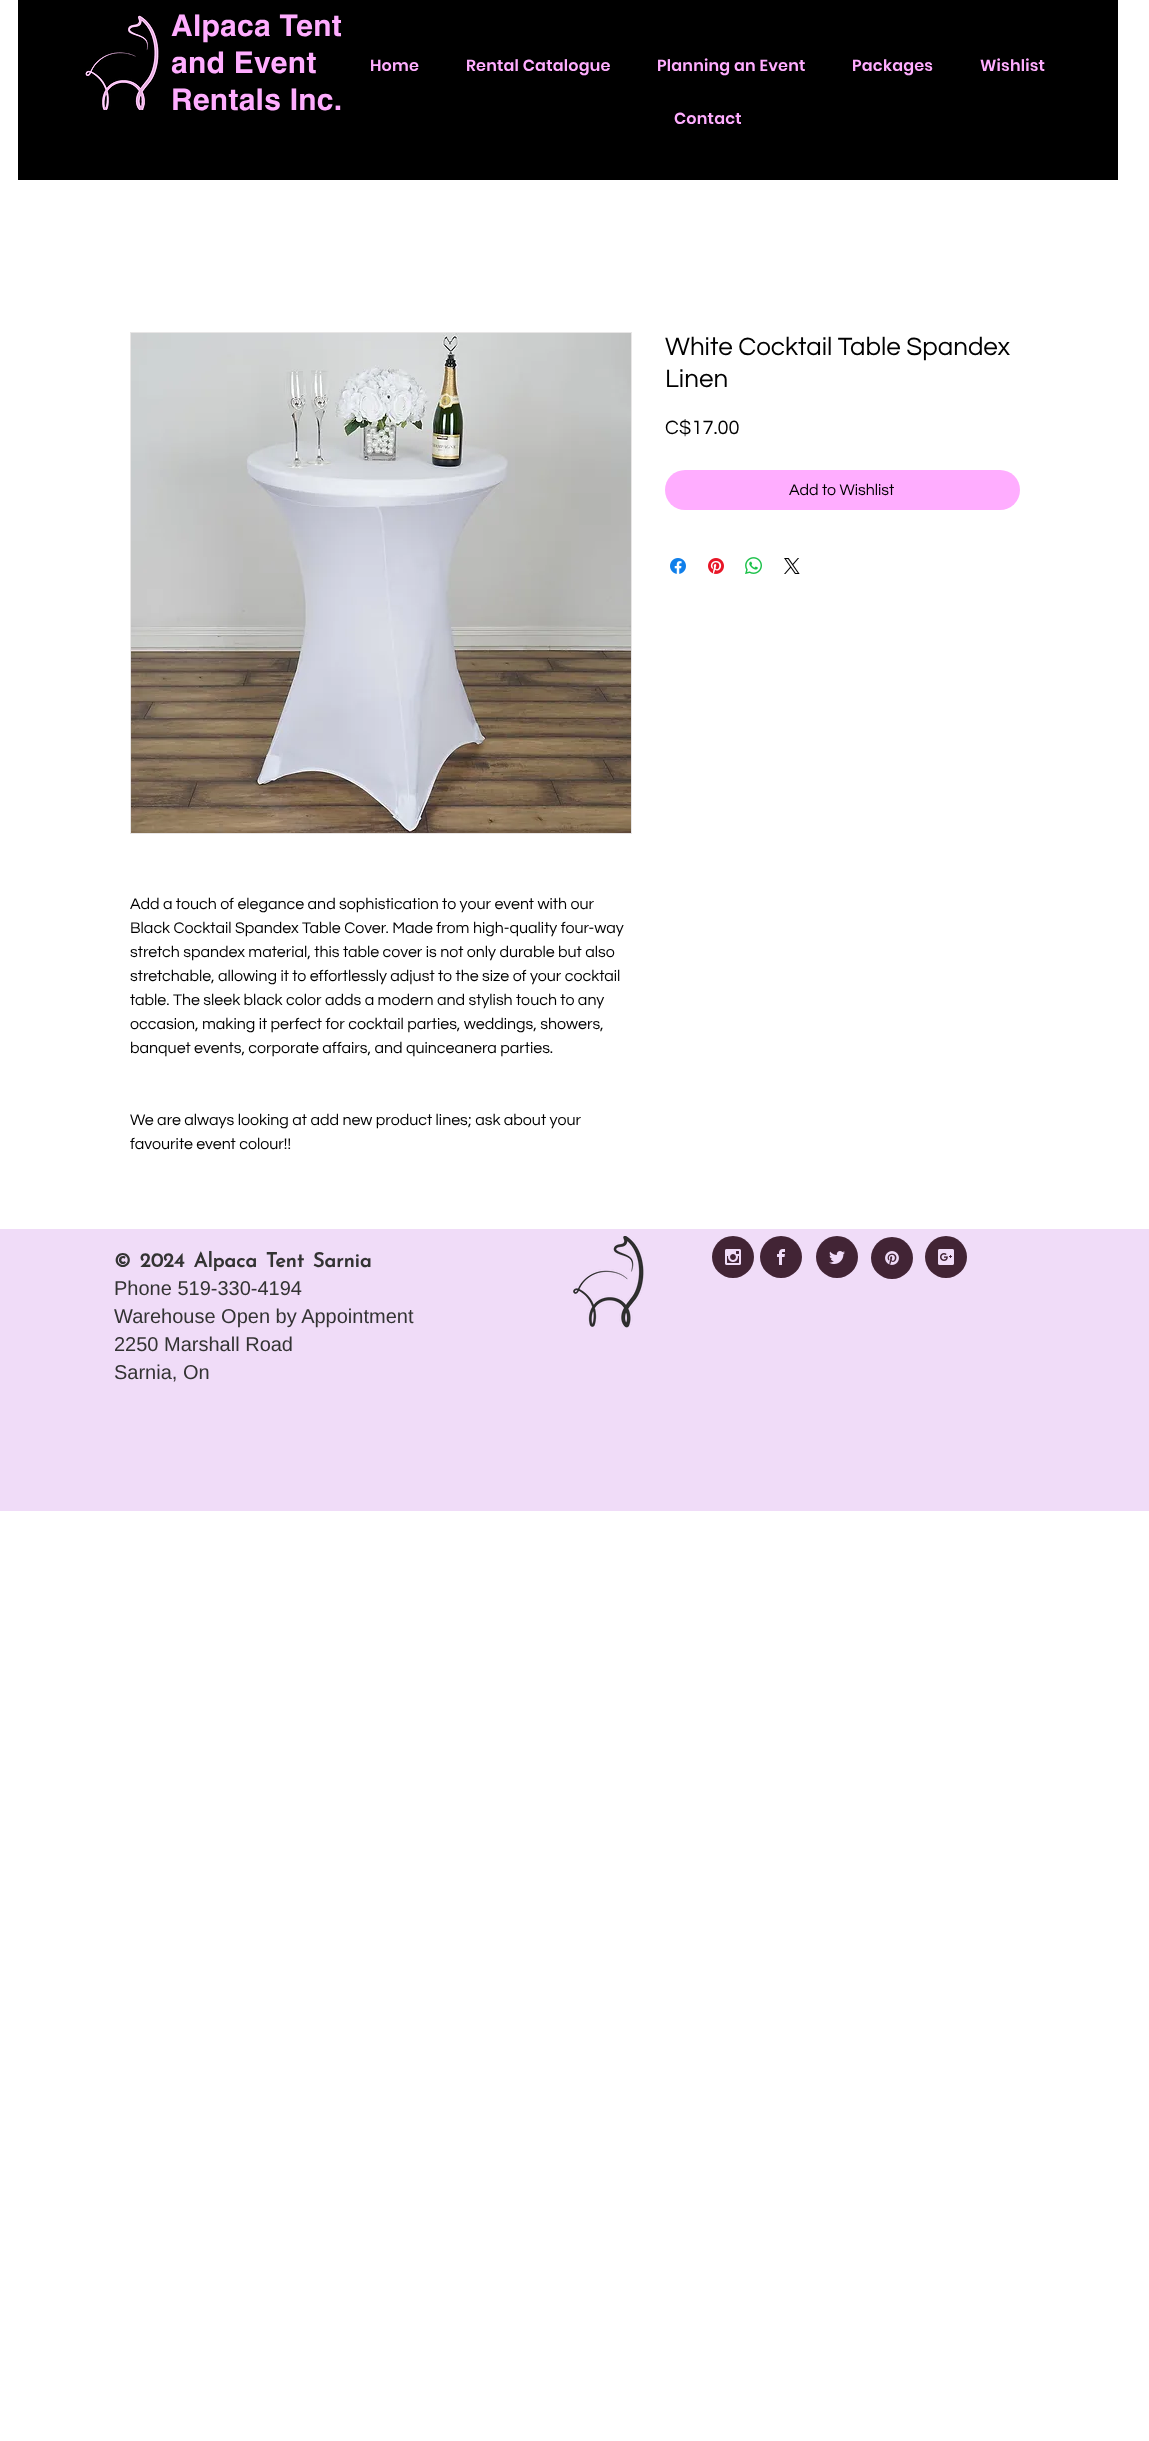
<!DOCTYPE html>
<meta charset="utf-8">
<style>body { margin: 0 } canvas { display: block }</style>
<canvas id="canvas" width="1149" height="2441"></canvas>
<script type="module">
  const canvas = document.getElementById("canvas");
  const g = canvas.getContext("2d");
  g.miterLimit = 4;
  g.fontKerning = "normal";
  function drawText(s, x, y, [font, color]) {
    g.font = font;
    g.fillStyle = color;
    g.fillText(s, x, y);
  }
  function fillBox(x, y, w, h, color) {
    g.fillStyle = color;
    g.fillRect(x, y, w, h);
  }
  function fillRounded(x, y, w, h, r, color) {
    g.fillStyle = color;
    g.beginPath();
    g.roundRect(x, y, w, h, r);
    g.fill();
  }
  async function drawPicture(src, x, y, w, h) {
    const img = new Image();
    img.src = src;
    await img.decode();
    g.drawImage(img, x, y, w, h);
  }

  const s1 = ["bold 30px helvetica", "#FFADFF"];
  const s2 = ["600 16px Poppins", "#FFADFF"];
  const s3 = ["26px Questrial", "#000000"];
  const s4 = ["20px Questrial", "#000000"];
  const s5 = ["16px Questrial", "#000000"];
  const s6 = ["bold 20px Josefin Sans", "#333333"];
  const s7 = ["20px Liberation Sans", "#333333"];

  fillBox(0, 0, 1149, 2441, "#FFFFFF");
  fillBox(18, 0, 1100, 180, "#000000");
  await drawPicture("pic1.png", 85, 15, 74, 95);
  g.letterSpacing = "0.25px";
  drawText("Alpaca Tent", 171, 36, s1);
  drawText("and Event", 171, 73, s1);
  drawText("Rentals Inc.", 171, 110, s1);
  g.letterSpacing = "0.2px";
  drawText("Home", 370, 71, s2);
  drawText("Rental Catalogue", 466, 71, s2);
  drawText("Planning an Event", 657, 71, s2);
  drawText("Packages", 852, 71, s2);
  drawText("Wishlist", 980, 71, s2);
  drawText("Contact", 674, 124, s2);
  g.letterSpacing = "0px";
  drawText("White Cocktail Table Spandex", 665, 355, s3);
  drawText("Linen", 665, 387, s3);
  drawText("C$17.00", 665, 434, s4);
  fillRounded(665, 470, 355, 40, 20, "#FFADFF");
  drawText("Add to Wishlist", 789, 495, s5);
  await drawPicture("pic2.png", 670, 558, 16, 16);
  await drawPicture("pic3.png", 708, 558, 16, 16);
  await drawPicture("pic4.png", 745, 557, 17, 17);
  await drawPicture("pic5.png", 784, 558, 16, 16);
  g.strokeStyle = "#E8E6E6";
  g.strokeRect(130.5, 332.5, 501, 501);
  await drawPicture("pic6.png", 131, 333, 500, 500);
  drawText("Add a touch of elegance and sophistication to your event with our", 130, 909, s5);
  drawText("Black Cocktail Spandex Table Cover. Made from high-quality four-way", 130, 933, s5);
  drawText("stretch spandex material, this table cover is not only durable but also", 130, 957, s5);
  drawText("stretchable, allowing it to effortlessly adjust to the size of your cocktail", 130, 981, s5);
  drawText("table. The sleek black color adds a modern and stylish touch to any", 130, 1005, s5);
  drawText("occasion, making it perfect for cocktail parties, weddings, showers,", 130, 1029, s5);
  drawText("banquet events, corporate affairs, and quinceanera parties.", 130, 1053, s5);
  drawText("We are always looking at add new product lines; ask about your", 130, 1125, s5);
  drawText("favourite event colour!!", 130, 1149, s5);
  fillBox(0, 1229, 1149, 282, "#F0DCF8");
  g.wordSpacing = "2.5px";
  drawText("© 2024 Alpaca Tent Sarnia", 114, 1267, s6);
  g.wordSpacing = "0px";
  drawText("Phone 519-330-4194", 114, 1295, s7);
  drawText("Warehouse Open by Appointment", 114, 1323, s7);
  drawText("2250 Marshall Road", 114, 1351, s7);
  drawText("Sarnia, On", 114, 1379, s7);
  await drawPicture("pic7.png", 573, 1236, 71, 92);
  g.fillStyle = "#422435";
  g.beginPath();
  g.arc(733, 1257, 21, 0, Math.PI * 2);
  g.fill();
  await drawPicture("pic8.png", 725, 1249, 16, 16);
  g.beginPath();
  g.arc(781, 1257, 21, 0, Math.PI * 2);
  g.fill();
  await drawPicture("pic9.png", 777, 1249, 8, 16);
  g.beginPath();
  g.arc(837, 1257, 21, 0, Math.PI * 2);
  g.fill();
  await drawPicture("pic10.png", 829, 1251, 16, 13);
  g.beginPath();
  g.arc(892, 1258, 21, 0, Math.PI * 2);
  g.fill();
  await drawPicture("pic11.png", 885, 1251, 14, 14);
  g.beginPath();
  g.arc(946, 1257, 21, 0, Math.PI * 2);
  g.fill();
  await drawPicture("pic12.png", 938, 1249, 16, 16);
</script>
